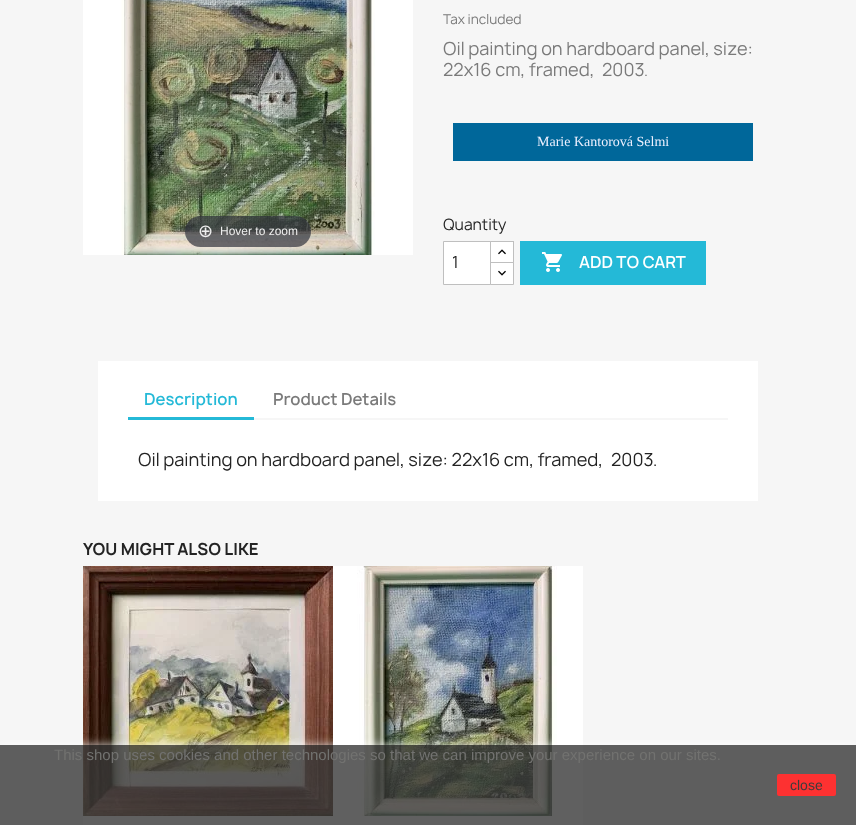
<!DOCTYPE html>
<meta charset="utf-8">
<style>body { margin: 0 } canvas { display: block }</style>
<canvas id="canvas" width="856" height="825"></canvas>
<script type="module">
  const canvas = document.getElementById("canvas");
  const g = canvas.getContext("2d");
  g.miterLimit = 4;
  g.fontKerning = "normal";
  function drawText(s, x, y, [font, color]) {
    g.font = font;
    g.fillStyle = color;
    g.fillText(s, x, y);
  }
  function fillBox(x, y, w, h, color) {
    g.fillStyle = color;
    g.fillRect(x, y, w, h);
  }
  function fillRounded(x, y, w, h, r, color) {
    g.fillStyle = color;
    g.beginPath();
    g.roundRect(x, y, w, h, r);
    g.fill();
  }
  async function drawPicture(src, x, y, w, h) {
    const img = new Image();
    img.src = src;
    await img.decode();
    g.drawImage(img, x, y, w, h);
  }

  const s1 = ["18px DejaVu Sans", "#EEEEEE"];
  const s2 = ["12px Liberation Sans", "#EEEEEE"];
  const s3 = ["13px Manrope", "#7A7A7A"];
  const s4 = ["17.4px Manrope", "#7A7A7A"];
  const s5 = ["15px Manrope", "#7A7A7A"];
  const s6 = ["14px Liberation Serif", "#EDF0FF"];
  const s7 = ["15px Manrope", "#232323"];
  const s8 = ["16px Manrope", "#232323"];
  const s9 = ["600 16px Manrope", "#FFFFFF"];
  const s10 = ["600 16px Manrope", "#24B9D7"];
  const s11 = ["600 16px Manrope", "#7A7A7A"];
  const s12 = ["17.4px Manrope", "#232323"];
  const s13 = ["bold 16px Manrope", "#232323"];
  const s14 = ["15px Liberation Sans", "#727270"];
  const s15 = ["14px Liberation Sans", "#3C3C3C"];

  fillBox(0, 0, 856, 825, "#F6F6F6");
  await drawPicture("pic1.png", 83, 0, 330, 255);
  fillRounded(185, 216, 126, 31, 15.5, "rgba(49, 51, 61, 0.7)");
  drawText("⊕", 198, 237, s1);
  drawText("Hover to zoom", 220, 235, s2);
  drawText("Tax included", 443, 24, s3);
  drawText("Oil painting on hardboard panel, size:", 443, 55, s4);
  drawText("22x16 cm, framed,", 443, 76, s4);
  drawText("2003", 602, 76, s4);
  drawText(".", 644, 76, s5);
  fillBox(453, 123, 300, 38, "#00679A");
  drawText("Marie Kantorová Selmi", 537, 146, s6);
  drawText("Quantity", 443, 230, s7);
  fillBox(491, 242, 22, 20, "#FFFFFF");
  g.strokeStyle = "#BFBFBF";
  g.strokeRect(490.5, 241.5, 23, 22);
  g.beginPath();
  g.rect(490.5, 262.5, 23, 22);
  g.fill();
  g.stroke();
  g.beginPath();
  g.rect(443.5, 241.5, 47, 43);
  g.fill();
  g.stroke();
  drawText("1", 452, 268, s8);
  await drawPicture("pic2.png", 498, 249, 8, 6);
  await drawPicture("pic3.png", 498, 270, 8, 6);
  fillBox(520, 241, 186, 44, "#24B9D7");
  await drawPicture("pic4.png", 542, 252, 20, 20);
  drawText("ADD TO CART", 579, 268, s9);
  fillBox(98, 361, 660, 140, "#FFFFFF");
  fillBox(254, 418, 474, 2, "#F6F6F6");
  fillBox(128, 417, 126, 3, "#24B9D7");
  drawText("Description", 144, 405, s10);
  drawText("Product Details", 273, 405, s11);
  drawText("Oil painting on hardboard panel, size: 22x16 cm, framed,", 138, 466, s12);
  drawText("2003", 611, 466, s12);
  drawText(".", 653, 466, s8);
  drawText("YOU MIGHT ALSO LIKE", 83, 555, s13);
  fillBox(83, 816, 250, 9, "#FFFFFF");
  await drawPicture("pic5.png", 83, 566, 250, 250);
  fillBox(333, 566, 250, 259, "#FFFFFF");
  await drawPicture("pic6.png", 357, 566, 200, 250);
  g.save();
  g.beginPath();
  g.rect(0, 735, 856, 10);
  g.clip();
  g.fillStyle = "rgba(255, 255, 255, 0.8)";
  g.filter = "blur(5px)";
  g.beginPath();
  g.rect(0, 745, 856, 80);
  g.fill();
  g.filter = "none";
  g.restore();
  fillBox(0, 745, 856, 80, "rgba(56, 56, 56, 0.8)");
  drawText("This shop uses cookies and other technologies so that we can improve your experience on our sites.", 54, 760, s14);
  fillRounded(777, 774, 59, 22, 2, "#FD3131");
  drawText("close", 790, 790, s15);
</script>
